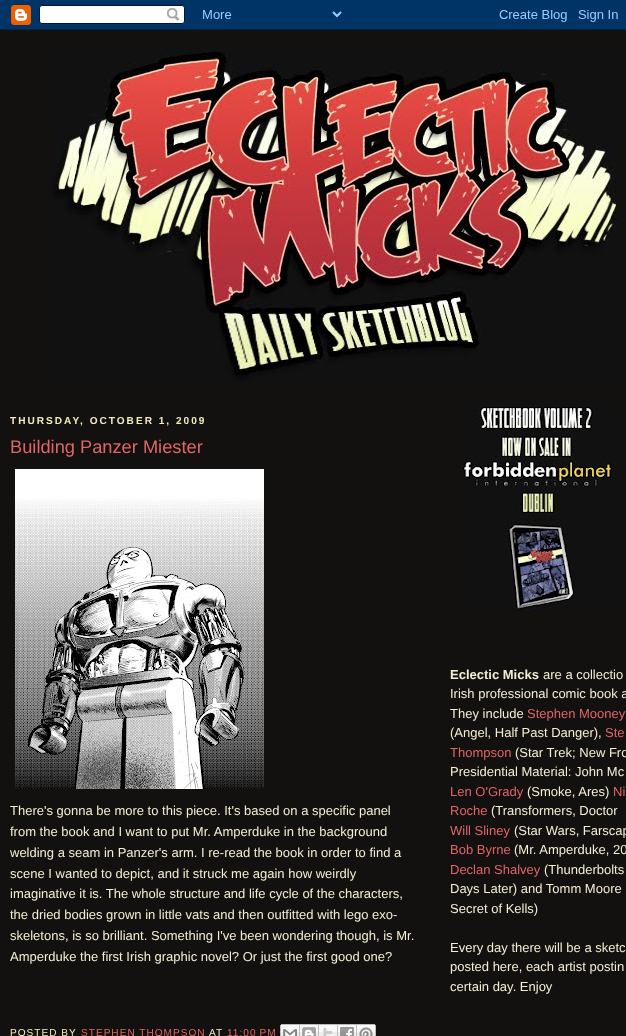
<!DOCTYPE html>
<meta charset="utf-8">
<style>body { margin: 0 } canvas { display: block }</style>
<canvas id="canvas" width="626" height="1036"></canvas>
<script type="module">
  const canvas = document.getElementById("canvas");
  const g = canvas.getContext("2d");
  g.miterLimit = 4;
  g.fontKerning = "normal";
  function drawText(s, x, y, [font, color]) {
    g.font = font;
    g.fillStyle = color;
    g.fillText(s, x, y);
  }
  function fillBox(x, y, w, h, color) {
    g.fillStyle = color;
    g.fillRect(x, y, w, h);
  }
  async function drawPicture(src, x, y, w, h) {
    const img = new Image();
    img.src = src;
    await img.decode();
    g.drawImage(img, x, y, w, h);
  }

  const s1 = ["bold 10.1px Liberation Sans", "#F4E9C2"];
  const s2 = ["18.25px Liberation Sans", "#E06666"];
  const s3 = ["13px Liberation Sans", "#F4EDD3"];
  const s4 = ["10.1px Liberation Sans", "#F4E9C2"];
  const s5 = ["10.1px Liberation Sans", "#E06666"];
  const s6 = ["bold 13px Liberation Sans", "#F4EDD3"];
  const s7 = ["13px Liberation Sans", "#E06666"];

  fillBox(0, 0, 626, 1036, "#131010");
  await drawPicture("pic1.png", 0, 0, 626, 30);
  await drawPicture("pic2.png", 52, 47, 566, 335);
  g.letterSpacing = "2px";
  drawText("THURSDAY, OCTOBER 1, 2009", 10, 424, s1);
  g.letterSpacing = "0px";
  drawText("Building Panzer Miester", 10, 453, s2);
  await drawPicture("pic3.png", 15, 469, 249, 320);
  drawText("There's gonna be more to this piece. It's based on a specific panel", 10, 815, s3);
  drawText("from the book and I want to put Mr. Amperduke in the background", 10, 836, s3);
  drawText("welding a seam in Panzer's arm. I re-read the book in order to find a", 10, 857, s3);
  drawText("scene I wanted to depict, and it struck me again how weirdly", 10, 878, s3);
  drawText("imaginative it is. The whole structure and life cycle of the characters,", 10, 898, s3);
  drawText("the dried bodies grown in little vats and then outfitted with lego exo-", 10, 919, s3);
  drawText("skeletons, is so brilliant. Something I've been wondering though, is Mr.", 10, 940, s3);
  drawText("Amperduke the first Irish graphic novel? Or just the first good one?", 10, 961, s3);
  g.letterSpacing = "1px";
  drawText("POSTED BY", 10, 1036, s4);
  drawText("STEPHEN THOMPSON", 81, 1036, s5);
  drawText("AT", 209, 1036, s4);
  drawText("11:00 PM", 227, 1036, s5);
  await drawPicture("pic4.png", 280, 1024, 20, 12);
  await drawPicture("pic5.png", 300, 1024, 19, 12);
  await drawPicture("pic6.png", 319, 1024, 19, 12);
  await drawPicture("pic7.png", 338, 1024, 19, 12);
  await drawPicture("pic8.png", 357, 1024, 19, 12);
  await drawPicture("pic9.png", 458, 403, 160, 212);
  g.letterSpacing = "0px";
  drawText("Eclectic Micks", 450, 679, s6);
  drawText("are a collectio", 543, 679, s3);
  drawText("Irish professional comic book a", 450, 698, s3);
  drawText("They include", 450, 718, s3);
  drawText("Stephen Mooney", 527, 718, s7);
  drawText("(Angel, Half Past Danger),", 450, 737, s3);
  drawText("Ste", 605, 737, s7);
  drawText("Thompson", 450, 757, s7);
  drawText("(Star Trek; New Fro", 515, 757, s3);
  drawText("Presidential Material: John Mc", 450, 776, s3);
  drawText("Len O'Grady", 450, 796, s7);
  drawText("(Smoke, Ares)", 527, 796, s3);
  drawText("Ni", 613, 796, s7);
  drawText("Roche", 450, 815, s7);
  drawText("(Transformers, Doctor", 491, 815, s3);
  drawText("Will Sliney", 450, 835, s7);
  drawText("(Star Wars, Farscap", 514, 835, s3);
  drawText("Bob Byrne", 450, 854, s7);
  drawText("(Mr. Amperduke, 20", 514, 854, s3);
  drawText("Declan Shalvey", 450, 874, s7);
  drawText("(Thunderbolts", 544, 874, s3);
  drawText("Days Later) and Tomm Moore", 450, 893, s3);
  drawText("Secret of Kells)", 450, 913, s3);
  drawText("Every day there will be a sketc", 450, 952, s3);
  drawText("posted here, each artist postin", 450, 971, s3);
  drawText("certain day. Enjoy", 450, 991, s3);
</script>
